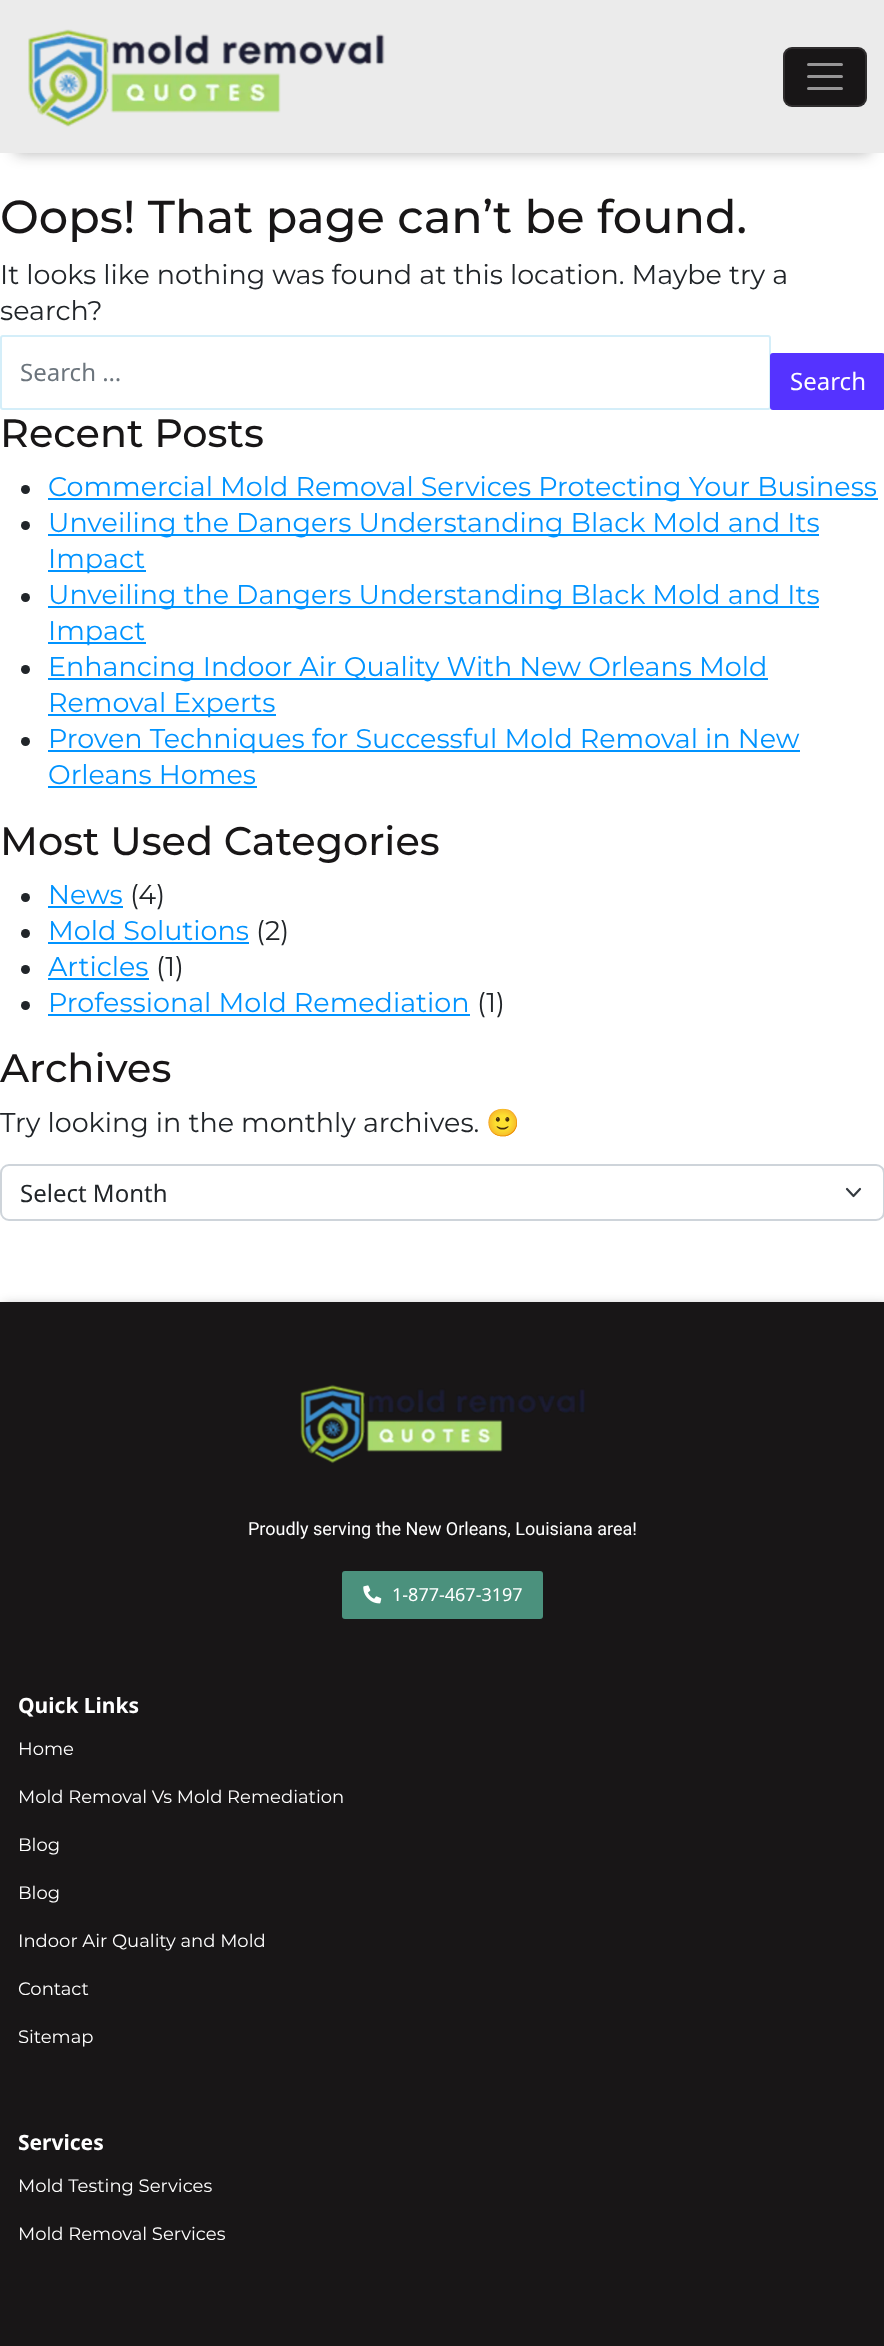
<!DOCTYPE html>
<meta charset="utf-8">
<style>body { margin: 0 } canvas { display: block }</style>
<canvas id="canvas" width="884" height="2346"></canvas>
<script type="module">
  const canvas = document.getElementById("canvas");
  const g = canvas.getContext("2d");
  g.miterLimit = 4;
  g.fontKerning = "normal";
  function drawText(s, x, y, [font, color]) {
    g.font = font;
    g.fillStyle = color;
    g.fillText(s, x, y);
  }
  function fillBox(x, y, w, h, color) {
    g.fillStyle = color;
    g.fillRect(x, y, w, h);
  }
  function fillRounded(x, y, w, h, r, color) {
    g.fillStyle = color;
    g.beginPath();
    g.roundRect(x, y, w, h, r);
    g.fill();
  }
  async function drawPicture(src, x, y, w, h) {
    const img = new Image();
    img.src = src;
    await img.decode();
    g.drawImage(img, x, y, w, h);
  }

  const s1 = ["500 46.25px Montserrat", "#181617"];
  const s2 = ["27px Montserrat", "#212529"];
  const s3 = ["24px Noto Sans", "#6C757D"];
  const s4 = ["24px Noto Sans", "#FFFFFF"];
  const s5 = ["500 39.75px Montserrat", "#181617"];
  const s6 = ["27px Montserrat", "#0093FF"];
  const s7 = ["27px Noto Color Emoji", "#212529"];
  const s8 = ["24px Noto Sans", "#212529"];
  const s9 = ["18px Roboto", "#FFFFFF"];
  const s10 = ["18px Noto Sans", "#FFFFFF"];
  const s11 = ["bold 21px Noto Sans", "#FFFFFF"];
  const s12 = ["18px Montserrat", "#FFFFFF"];

  fillBox(0, 0, 884, 2346, "#FFFFFF");
  g.fillStyle = "rgba(17, 17, 17, 0.33)";
  g.filter = "blur(7.5px)";
  g.beginPath();
  g.rect(15, 30, 855, 123);
  g.fill();
  g.filter = "none";
  fillBox(0, 0, 884, 153, "#EBEBEB");
  await drawPicture("pic1.png", 28, 29, 357, 98);
  fillRounded(783, 47, 84, 60, 9, "#181617");
  g.beginPath();
  g.roundRect(784, 48, 82, 58, 8);
  g.strokeStyle = "rgba(255, 255, 255, 0.1)";
  g.lineWidth = 2;
  g.stroke();
  g.beginPath();
  g.moveTo(808.5, 64.5);
  g.lineTo(841.5, 64.5);
  g.moveTo(808.5, 76.5);
  g.lineTo(841.5, 76.5);
  g.moveTo(808.5, 88.5);
  g.lineTo(841.5, 88.5);
  g.strokeStyle = "#979697";
  g.lineWidth = 3;
  g.lineCap = "round";
  g.stroke();
  drawText("Oops! That page can’t be found.", 0, 233, s1);
  drawText("It looks like nothing was found at this location. Maybe try a", 0, 284, s2);
  drawText("search?", 0, 320, s2);
  g.beginPath();
  g.roundRect(1, 336, 769, 73, 2);
  g.strokeStyle = "#D4EEF9";
  g.lineWidth = 2;
  g.stroke();
  drawText("Search …", 20, 381, s3);
  g.fillStyle = "#5533FF";
  g.beginPath();
  g.roundRect(771, 354, 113, 55, 2);
  g.fill();
  g.strokeStyle = "#5533FF";
  g.stroke();
  drawText("Search", 790, 390, s4);
  drawText("Recent Posts", 0, 447, s5);
  g.fillStyle = "#212529";
  g.beginPath();
  g.arc(25.5, 489.5, 4.5, 0, Math.PI * 2);
  g.fill();
  fillBox(48, 498, 830, 2, "#0093FF");
  drawText("Commercial Mold Removal Services Protecting Your Business", 48, 496, s6);
  g.fillStyle = "#212529";
  g.beginPath();
  g.arc(25.5, 525.5, 4.5, 0, Math.PI * 2);
  g.fill();
  fillBox(48, 534, 771, 2, "#0093FF");
  drawText("Unveiling the Dangers Understanding Black Mold and Its", 48, 532, s6);
  fillBox(48, 570, 98, 2, "#0093FF");
  drawText("Impact", 48, 568, s6);
  g.fillStyle = "#212529";
  g.beginPath();
  g.arc(25.5, 597.5, 4.5, 0, Math.PI * 2);
  g.fill();
  fillBox(48, 606, 771, 2, "#0093FF");
  drawText("Unveiling the Dangers Understanding Black Mold and Its", 48, 604, s6);
  fillBox(48, 642, 98, 2, "#0093FF");
  drawText("Impact", 48, 640, s6);
  g.fillStyle = "#212529";
  g.beginPath();
  g.arc(25.5, 669.5, 4.5, 0, Math.PI * 2);
  g.fill();
  fillBox(48, 678, 720, 2, "#0093FF");
  drawText("Enhancing Indoor Air Quality With New Orleans Mold", 48, 676, s6);
  fillBox(48, 714, 228, 2, "#0093FF");
  drawText("Removal Experts", 48, 712, s6);
  g.fillStyle = "#212529";
  g.beginPath();
  g.arc(25.5, 741.5, 4.5, 0, Math.PI * 2);
  g.fill();
  fillBox(48, 750, 752, 2, "#0093FF");
  drawText("Proven Techniques for Successful Mold Removal in New", 48, 748, s6);
  drawText("Orleans Homes", 48, 784, s6);
  fillBox(48, 786, 209, 2, "#0093FF");
  drawText("Most Used Categories", 0, 855, s5);
  g.fillStyle = "#212529";
  g.beginPath();
  g.arc(25.5, 897.5, 4.5, 0, Math.PI * 2);
  g.fill();
  drawText("News", 48, 904, s6);
  fillBox(48, 906, 75, 2, "#0093FF");
  drawText("(4)", 130, 904, s2);
  g.beginPath();
  g.arc(25.5, 933.5, 4.5, 0, Math.PI * 2);
  g.fill();
  drawText("Mold Solutions", 48, 940, s6);
  fillBox(48, 942, 201, 2, "#0093FF");
  drawText("(2)", 256, 940, s2);
  g.beginPath();
  g.arc(25.5, 969.5, 4.5, 0, Math.PI * 2);
  g.fill();
  drawText("Articles", 48, 976, s6);
  fillBox(48, 978, 101, 2, "#0093FF");
  drawText("(1)", 156, 976, s2);
  g.beginPath();
  g.arc(25.5, 1005.5, 4.5, 0, Math.PI * 2);
  g.fill();
  drawText("Professional Mold Remediation", 48, 1012, s6);
  fillBox(48, 1014, 422, 2, "#0093FF");
  drawText("(1)", 477, 1012, s2);
  drawText("Archives", 0, 1082, s5);
  drawText("Try looking in the monthly archives.", 0, 1132, s2);
  drawText("🙂", 486, 1132, s7);
  g.beginPath();
  g.moveTo(847, 1189);
  g.lineTo(853.5, 1196);
  g.lineTo(860, 1189);
  g.strokeStyle = "#343A40";
  g.lineWidth = 2.2;
  g.lineJoin = "round";
  g.stroke();
  g.beginPath();
  g.roundRect(1, 1165, 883, 55, 8);
  g.strokeStyle = "#CED4DA";
  g.lineWidth = 2;
  g.lineJoin = "miter";
  g.stroke();
  drawText("Select Month", 20, 1202, s8);
  g.fillStyle = "rgba(17, 17, 17, 0.33)";
  g.filter = "blur(6px)";
  g.beginPath();
  g.rect(3, 1305, 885, 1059);
  g.fill();
  g.filter = "none";
  fillBox(0, 1302, 884, 1044, "#181617");
  await drawPicture("pic2.png", 300, 1384, 285, 80);
  drawText("Proudly serving the New Orleans, Louisiana area!", 248, 1535, s9);
  fillRounded(342, 1571, 201, 48, 3, "#4B917D");
  await drawPicture("pic3.png", 363, 1585, 19, 19);
  drawText("1-877-467-3197", 392, 1601, s10);
  drawText("Quick Links", 18, 1713, s11);
  drawText("Home", 18, 1755, s12);
  drawText("Mold Removal Vs Mold Remediation", 18, 1803, s12);
  drawText("Blog", 18, 1851, s12);
  drawText("Blog", 18, 1899, s12);
  drawText("Indoor Air Quality and Mold", 18, 1947, s12);
  drawText("Contact", 18, 1995, s12);
  drawText("Sitemap", 18, 2043, s12);
  drawText("Services", 18, 2150, s11);
  drawText("Mold Testing Services", 18, 2192, s12);
  drawText("Mold Removal Services", 18, 2240, s12);
</script>
